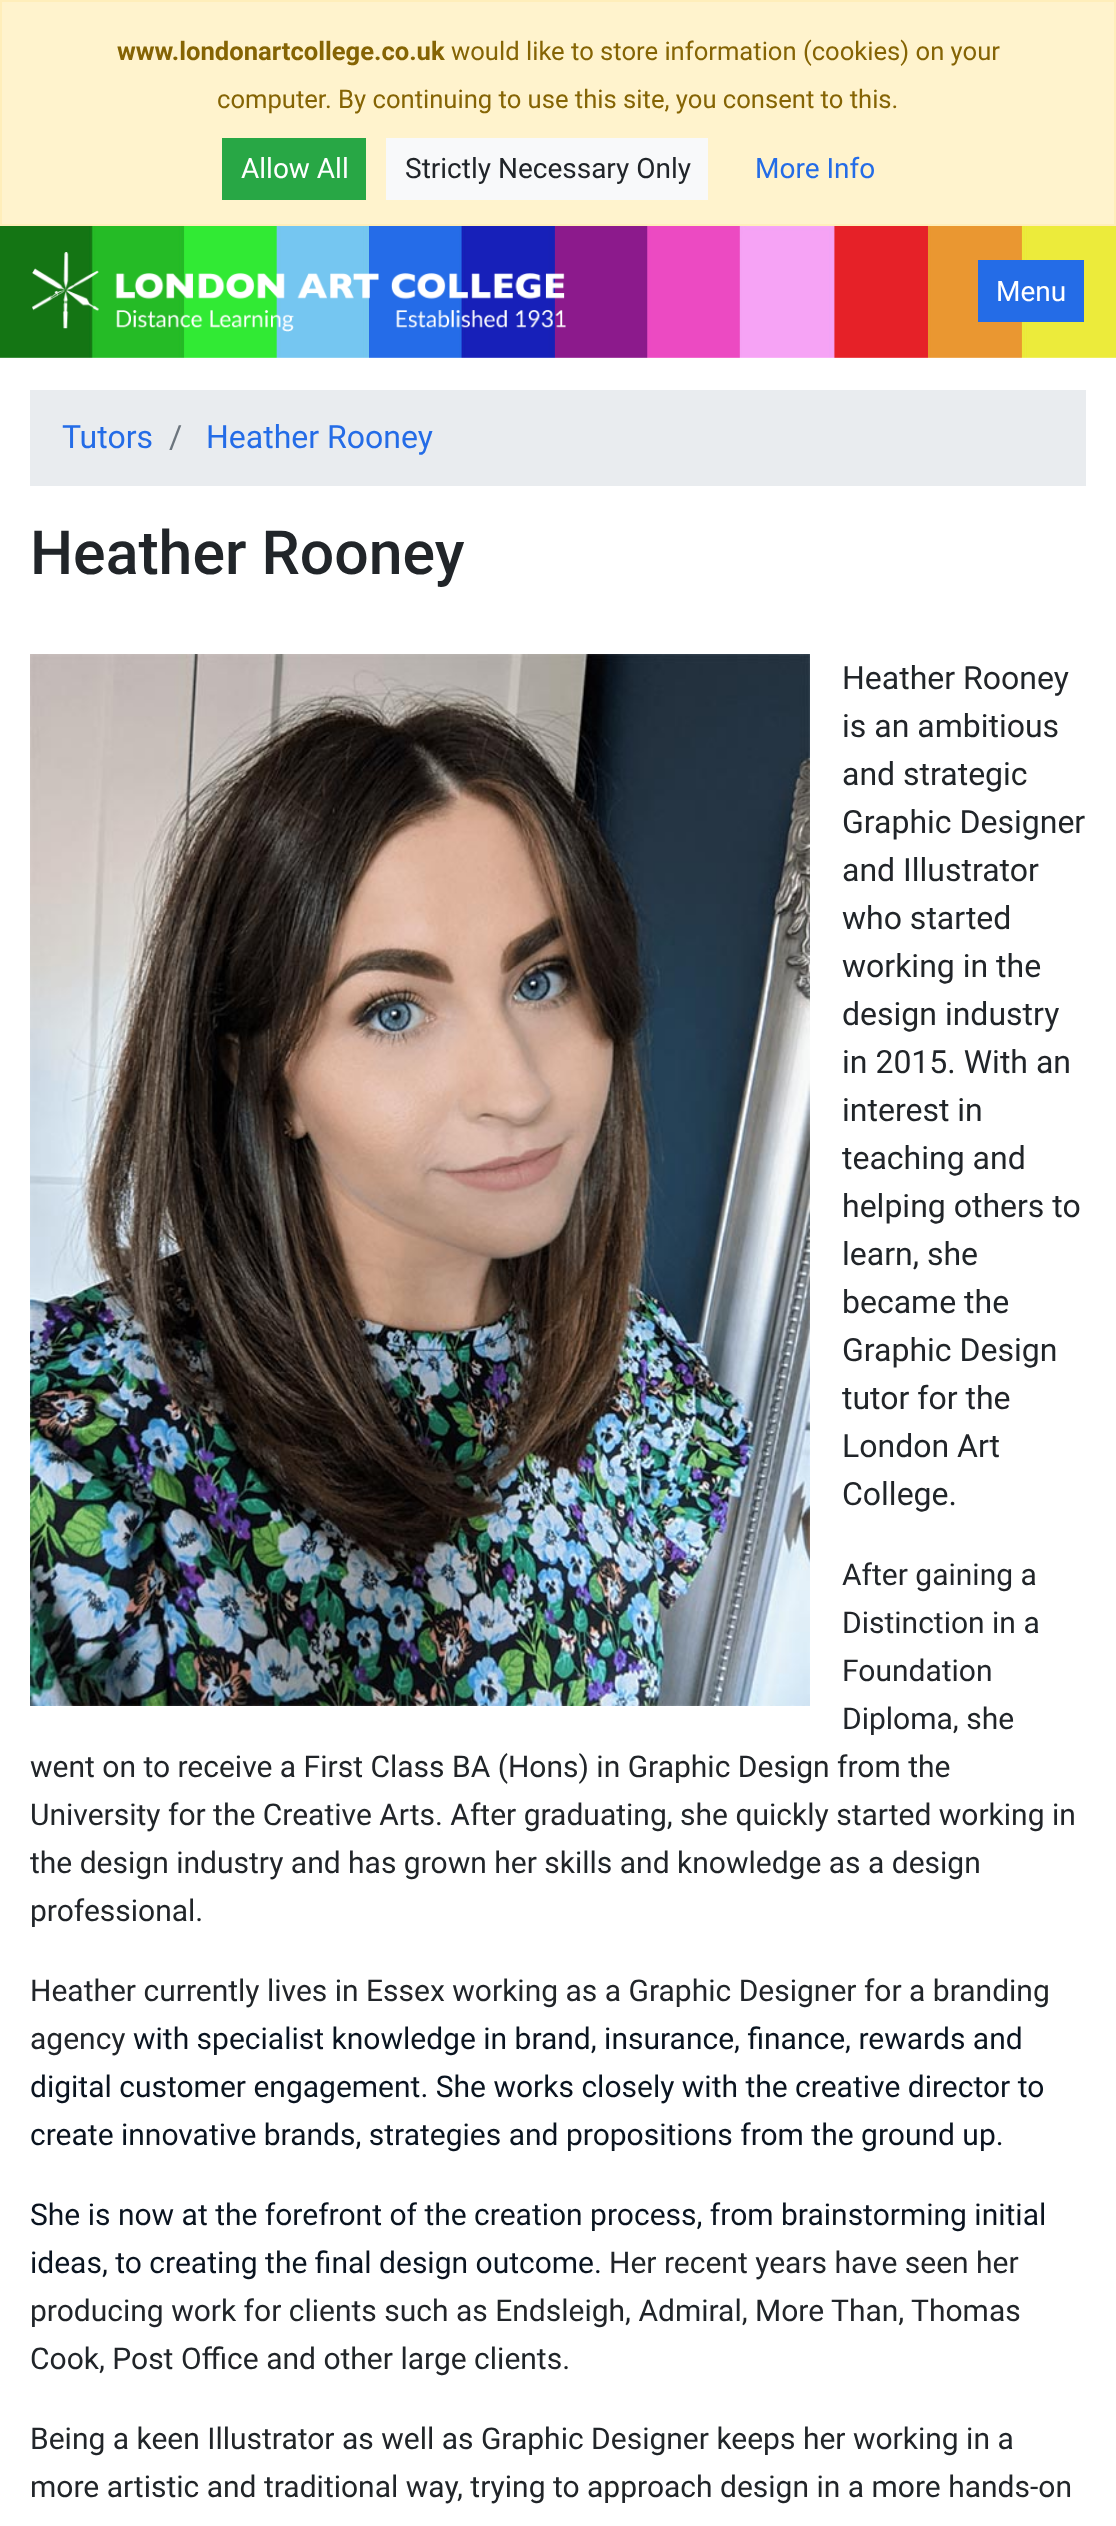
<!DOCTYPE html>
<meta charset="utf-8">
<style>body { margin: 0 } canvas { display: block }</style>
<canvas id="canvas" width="1116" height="2526"></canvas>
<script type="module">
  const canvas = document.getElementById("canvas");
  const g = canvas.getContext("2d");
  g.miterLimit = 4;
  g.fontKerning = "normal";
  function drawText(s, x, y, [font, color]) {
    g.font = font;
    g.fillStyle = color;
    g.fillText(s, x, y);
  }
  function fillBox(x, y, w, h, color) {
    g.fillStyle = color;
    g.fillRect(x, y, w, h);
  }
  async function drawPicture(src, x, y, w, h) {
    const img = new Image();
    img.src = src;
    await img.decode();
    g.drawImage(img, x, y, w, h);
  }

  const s1 = ["bold 25.6px Roboto", "#856404"];
  const s2 = ["25.6px Roboto", "#856404"];
  const s3 = ["28px Roboto", "#FFFFFF"];
  const s4 = ["28px Roboto", "#212529"];
  const s5 = ["28px Roboto", "#246CE7"];
  const s6 = ["32px Roboto", "#246CE7"];
  const s7 = ["32px Roboto", "#6C757D"];
  const s8 = ["500 60.75px Roboto", "#212529"];
  const s9 = ["32px Roboto", "#212529"];
  const s10 = ["30px Roboto", "#212529"];
  const s11 = ["30px Roboto", "#0A1420"];

  fillBox(0, 0, 1116, 2526, "#FFFFFF");
  g.fillStyle = "#FFF3CD";
  g.beginPath();
  g.rect(1, 1, 1114, 224);
  g.fill();
  g.strokeStyle = "#FFEEBA";
  g.lineWidth = 2;
  g.stroke();
  drawText("www.londonartcollege.co.uk", 117, 60, s1);
  drawText("would like to store information (cookies) on your", 451, 60, s2);
  drawText("computer. By continuing to use this site, you consent to this.", 217, 108, s2);
  fillBox(222, 138, 144, 62, "#28A745");
  drawText("Allow All", 241, 178, s3);
  fillBox(386, 138, 322, 62, "#F8F9FA");
  drawText("Strictly Necessary Only", 405, 178, s4);
  drawText("More Info", 755, 178, s5);
  await drawPicture("pic1.png", 0, 226, 1116, 132);
  await drawPicture("pic2.png", 32, 252, 534, 80);
  fillBox(978, 260, 106, 62, "#246CE7");
  drawText("Menu", 996, 301, s3);
  fillBox(30, 390, 1056, 96, "#E9ECEF");
  drawText("Tutors", 62, 448, s6);
  drawText("/", 169, 448, s7);
  drawText("Heather Rooney", 206, 448, s6);
  drawText("Heather Rooney", 30, 574, s8);
  await drawPicture("pic3.png", 30, 654, 780, 1052);
  drawText("Heather Rooney", 842, 689, s9);
  drawText("is an ambitious", 842, 737, s9);
  drawText("and strategic", 842, 785, s9);
  drawText("Graphic Designer", 842, 833, s9);
  drawText("and Illustrator", 842, 881, s9);
  drawText("who started", 842, 929, s9);
  drawText("working in the", 842, 977, s9);
  drawText("design industry", 842, 1025, s9);
  drawText("in 2015. With an", 842, 1073, s9);
  drawText("interest in", 842, 1121, s9);
  drawText("teaching and", 842, 1169, s9);
  drawText("helping others to", 842, 1217, s9);
  drawText("learn, she", 842, 1265, s9);
  drawText("became the", 842, 1313, s9);
  drawText("Graphic Design", 842, 1361, s9);
  drawText("tutor for the", 842, 1409, s9);
  drawText("London Art", 842, 1457, s9);
  drawText("College.", 842, 1505, s9);
  drawText("After gaining a", 842, 1585, s10);
  drawText("Distinction in a", 842, 1633, s10);
  drawText("Foundation", 842, 1681, s10);
  drawText("Diploma, she", 842, 1729, s10);
  drawText("went on to receive a First Class BA (Hons) in Graphic Design from the", 30, 1777, s10);
  drawText("University for the Creative Arts. After graduating, she quickly started working in", 30, 1825, s10);
  drawText("the design industry and has grown her skills and knowledge as a design", 30, 1873, s10);
  drawText("professional.", 30, 1921, s10);
  drawText("Heather currently lives in Essex working as a Graphic Designer for a branding", 30, 2001, s10);
  drawText("agency", 30, 2049, s10);
  drawText("with specialist knowledge in brand, insurance, finance, rewards and", 133, 2049, s11);
  drawText("digital customer engagement. She works closely with the creative director to", 30, 2097, s11);
  drawText("create innovative brands, strategies and propositions from the ground up.", 30, 2145, s11);
  drawText("She is now at the forefront of the creation process, from brainstorming initial", 30, 2225, s11);
  drawText("ideas, to creating the final design outcome.", 30, 2273, s11);
  drawText("Her recent years have seen her", 609, 2273, s10);
  drawText("producing work for clients such as Endsleigh, Admiral, More Than, Thomas", 30, 2321, s10);
  drawText("Cook, Post Office and other large clients.", 30, 2369, s10);
  drawText("Being a keen Illustrator as well as Graphic Designer keeps her working in a", 30, 2449, s10);
  drawText("more artistic and traditional way, trying to approach design in a more hands-on", 30, 2497, s10);
</script>
